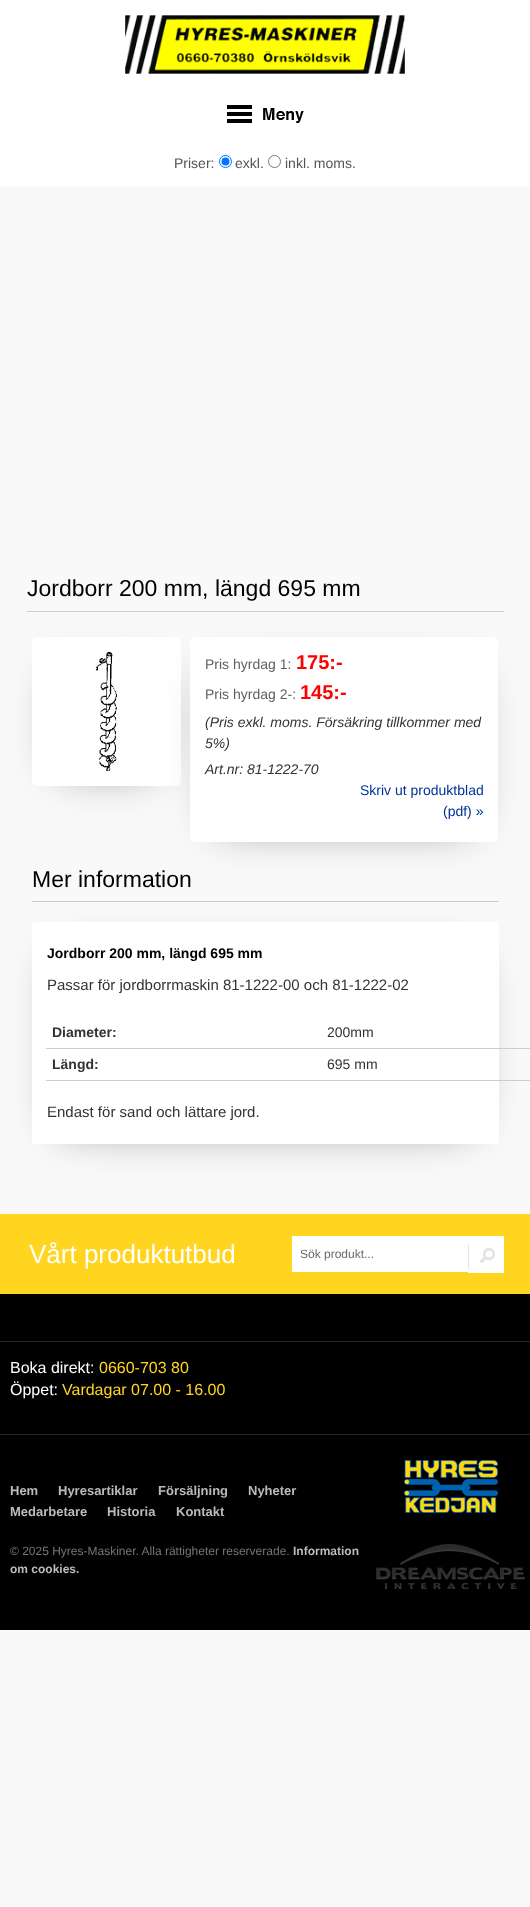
<!DOCTYPE html>
<meta charset="utf-8">
<style>body { margin: 0 } canvas { display: block }</style>
<canvas id="canvas" width="530" height="1907"></canvas>
<script type="module">
  const canvas = document.getElementById("canvas");
  const g = canvas.getContext("2d");
  g.miterLimit = 4;
  g.fontKerning = "normal";
  function drawText(s, x, y, [font, color]) {
    g.font = font;
    g.fillStyle = color;
    g.fillText(s, x, y);
  }
  function fillBox(x, y, w, h, color) {
    g.fillStyle = color;
    g.fillRect(x, y, w, h);
  }
  function fillRounded(x, y, w, h, r, color) {
    g.fillStyle = color;
    g.beginPath();
    g.roundRect(x, y, w, h, r);
    g.fill();
  }
  async function drawPicture(src, x, y, w, h) {
    const img = new Image();
    img.src = src;
    await img.decode();
    g.drawImage(img, x, y, w, h);
  }

  const s1 = ["14px Liberation Sans", "#555555"];
  const s2 = ["23px Liberation Sans", "#000000"];
  const s3 = ["14px Liberation Sans", "#5F5F5F"];
  const s4 = ["bold 20px Liberation Sans", "#FF0000"];
  const s5 = ["italic 14px Liberation Sans", "#333333"];
  const s6 = ["14px Liberation Sans", "#003399"];
  const s7 = ["bold 14px Liberation Sans", "#000000"];
  const s8 = ["15px Liberation Sans", "#333333"];
  const s9 = ["bold 14px Liberation Sans", "#333333"];
  const s10 = ["14px Liberation Sans", "#333333"];
  const s11 = ["26px Liberation Sans", "#FFFFFF"];
  const s12 = ["12px Liberation Sans", "#68696A"];
  const s13 = ["16px Liberation Sans", "#FFFFFF"];
  const s14 = ["16px Liberation Sans", "#FFD520"];
  const s15 = ["bold 13px Liberation Sans", "#BBBBBB"];
  const s16 = ["12px Liberation Sans", "#757575"];
  const s17 = ["bold 12px Liberation Sans", "#BBBBBB"];

  fillBox(0, 0, 530, 1907, "#F9F9F9");
  fillBox(0, 0, 530, 186, "#FFFFFF");
  await drawPicture("pic1.png", 125, 15, 280, 59);
  await drawPicture("pic2.png", 227, 105, 77, 18);
  drawText("Priser:", 174, 168, s1);
  g.beginPath();
  g.arc(225.5, 161.5, 6, 0, Math.PI * 2);
  g.strokeStyle = "#0075FF";
  g.stroke();
  g.fillStyle = "#0075FF";
  g.beginPath();
  g.arc(225.5, 161.5, 4, 0, Math.PI * 2);
  g.fill();
  drawText("exkl.", 235, 168, s1);
  g.beginPath();
  g.arc(274.5, 161.5, 6, 0, Math.PI * 2);
  g.strokeStyle = "#767676";
  g.stroke();
  drawText("inkl. moms.", 285, 168, s1);
  fillBox(27, 611, 477, 1, "#CCCCCC");
  drawText("Jordborr 200 mm, längd 695 mm", 27, 596, s2);
  g.fillStyle = "rgba(0, 0, 0, 0.55)";
  g.filter = "blur(23px)";
  g.beginPath();
  g.rect(61, 676, 91, 91);
  g.fill();
  g.filter = "none";
  fillRounded(32, 637, 149, 149, 5, "#FFFFFF");
  await drawPicture("pic3.png", 95, 652, 22, 119);
  g.fillStyle = "rgba(0, 0, 0, 0.55)";
  g.filter = "blur(23px)";
  g.beginPath();
  g.rect(219, 676, 250, 147);
  g.fill();
  g.filter = "none";
  fillRounded(190, 637, 308, 205, 5, "#FFFFFF");
  drawText("Pris hyrdag 1:", 205, 669, s3);
  drawText("175:-", 296, 669, s4);
  drawText("Pris hyrdag 2-:", 205, 699, s3);
  drawText("145:-", 300, 699, s4);
  drawText("(Pris exkl. moms. Försäkring tillkommer med", 205, 727, s5);
  drawText("5%)", 205, 748, s5);
  drawText("Art.nr: 81-1222-70", 205, 774, s5);
  drawText("Skriv ut produktblad", 360, 795, s6);
  drawText("(pdf) »", 443, 816, s6);
  fillBox(32, 901, 467, 1, "#CCCCCC");
  drawText("Mer information", 32, 887, s2);
  g.fillStyle = "rgba(0, 0, 0, 0.55)";
  g.filter = "blur(23px)";
  g.beginPath();
  g.rect(61, 961, 409, 164);
  g.fill();
  g.filter = "none";
  fillRounded(32, 922, 467, 222, 3, "#FFFFFF");
  drawText("Jordborr 200 mm, längd 695 mm", 47, 958, s7);
  drawText("Passar för jordborrmaskin 81-1222-00 och 81-1222-02", 47, 990, s8);
  drawText("Diameter:", 52, 1037, s9);
  fillBox(46, 1048, 484, 1, "#CCCCCC");
  drawText("200mm", 327, 1037, s10);
  drawText("Längd:", 52, 1069, s9);
  fillBox(46, 1080, 484, 1, "#CCCCCC");
  drawText("695 mm", 327, 1069, s10);
  drawText("Endast för sand och lättare jord.", 47, 1117, s8);
  fillBox(0, 1294, 530, 336, "#000000");
  fillBox(0, 1214, 530, 80, "#FFD520");
  drawText("Vårt produktutbud", 29, 1263, s11);
  fillBox(292, 1236, 212, 36, "#FFFFFF");
  drawText("Sök produkt...", 300, 1258, s12);
  await drawPicture("pic4.png", 468, 1244, 36, 29);
  fillBox(0, 1341, 530, 1, "#262626");
  fillBox(0, 1434, 530, 1, "#262626");
  drawText("Boka direkt:", 10, 1373, s13);
  drawText("0660-703 80", 99, 1373, s14);
  drawText("Öppet:", 10, 1395, s13);
  drawText("Vardagar 07.00 - 16.00", 62, 1395, s14);
  drawText("Hem", 10, 1495, s15);
  drawText("Hyresartiklar", 58, 1495, s15);
  drawText("Försäljning", 158, 1495, s15);
  drawText("Nyheter", 248, 1495, s15);
  drawText("Medarbetare", 10, 1516, s15);
  drawText("Historia", 107, 1516, s15);
  drawText("Kontakt", 176, 1516, s15);
  drawText("© 2025 Hyres-Maskiner. Alla rättigheter reserverade.", 10, 1555, s16);
  drawText("Information", 293, 1555, s17);
  drawText("om cookies.", 10, 1573, s17);
  await drawPicture("pic5.png", 404, 1460, 94, 53);
  await drawPicture("pic6.png", 376, 1544, 149, 45);
</script>
